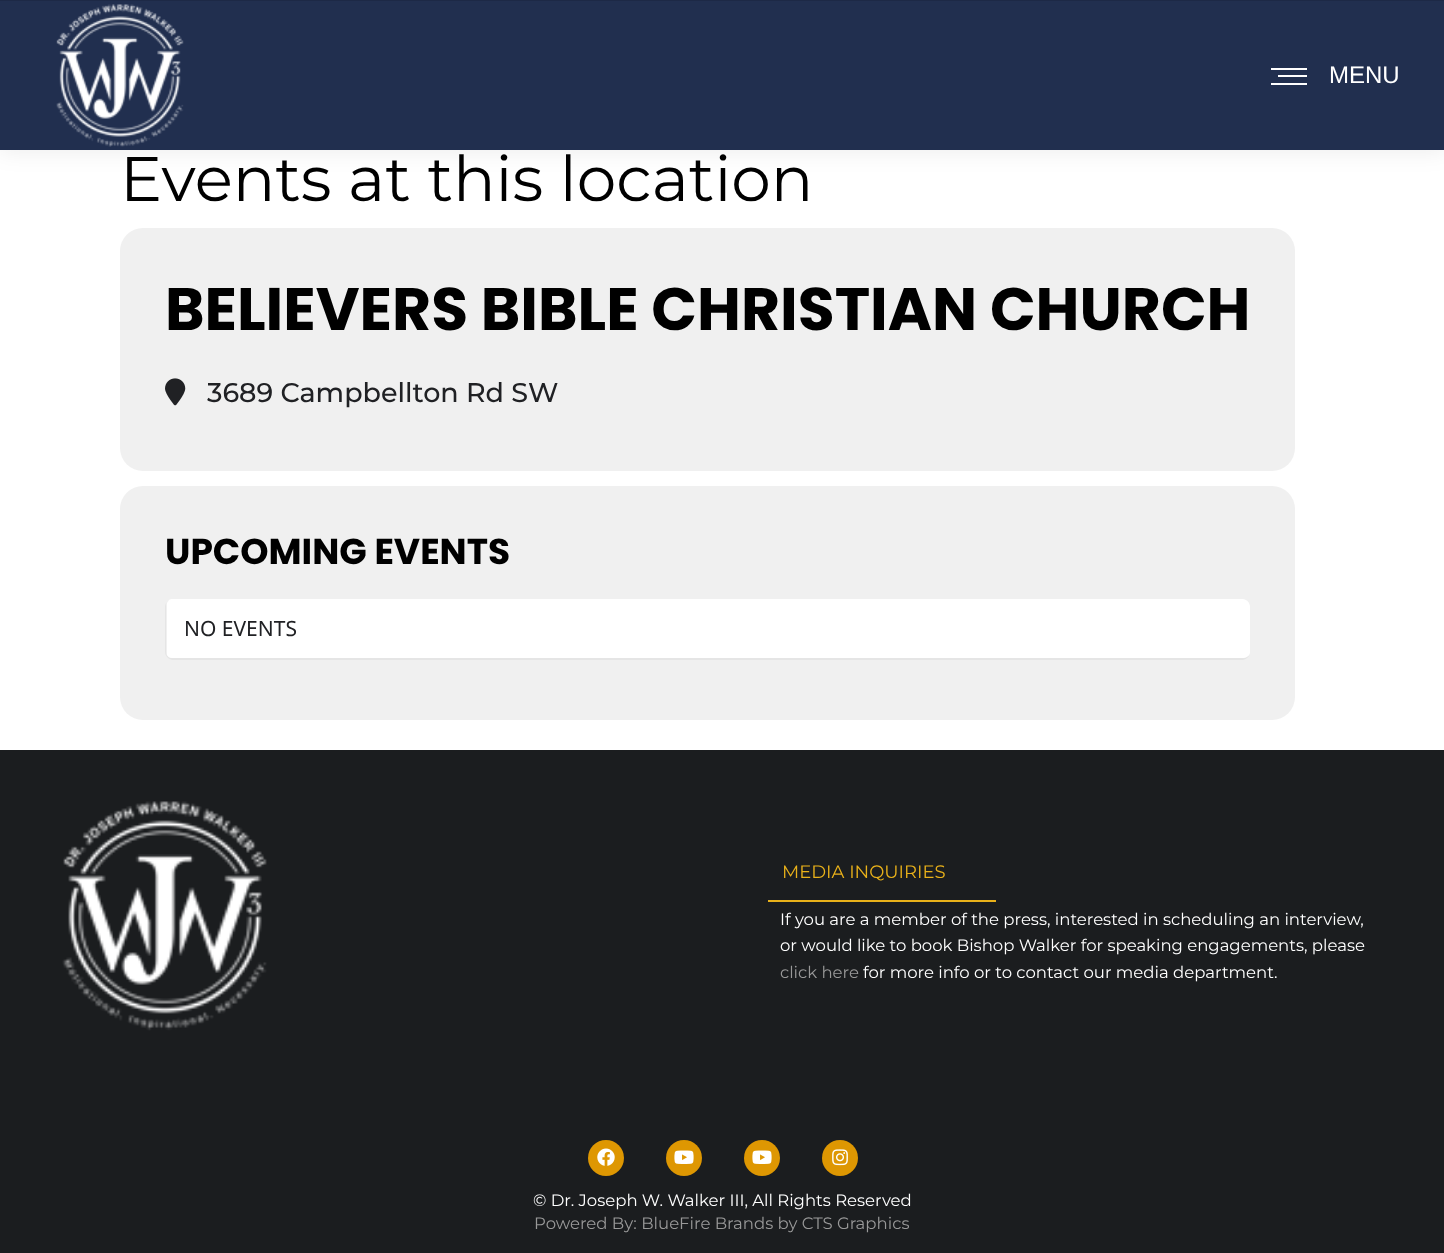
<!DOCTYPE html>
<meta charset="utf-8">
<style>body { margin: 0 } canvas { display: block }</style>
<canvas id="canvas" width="1444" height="1253"></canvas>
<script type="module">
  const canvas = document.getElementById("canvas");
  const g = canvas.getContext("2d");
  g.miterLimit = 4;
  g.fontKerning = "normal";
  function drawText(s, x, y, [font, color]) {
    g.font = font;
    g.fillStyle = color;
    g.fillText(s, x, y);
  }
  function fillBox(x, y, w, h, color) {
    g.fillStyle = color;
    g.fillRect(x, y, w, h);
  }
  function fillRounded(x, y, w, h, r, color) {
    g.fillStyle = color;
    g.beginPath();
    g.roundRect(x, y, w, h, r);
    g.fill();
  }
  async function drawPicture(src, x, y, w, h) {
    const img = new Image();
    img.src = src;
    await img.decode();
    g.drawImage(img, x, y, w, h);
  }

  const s1 = ["24px Liberation Sans", "#FFFFFF"];
  const s2 = ["63px Montserrat", "#000000"];
  const s3 = ["bold 60px Poppins", "#000000"];
  const s4 = ["500 27px Montserrat", "#202124"];
  const s5 = ["bold 36px Poppins", "#000000"];
  const s6 = ["21px Noto Sans", "#202124"];
  const s7 = ["18px Montserrat", "#E9B11A"];
  const s8 = ["16.5px Montserrat", "#FFFFFF"];
  const s9 = ["16.5px Montserrat", "#999999"];

  fillBox(0, 0, 1444, 1253, "#FFFFFF");
  g.fillStyle = "rgba(0, 0, 0, 0.07)";
  g.filter = "blur(11px)";
  g.beginPath();
  g.rect(-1, -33, 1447, 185);
  g.fill();
  g.filter = "none";
  fillBox(0, 1, 1444, 149, "#212F4F");
  fillBox(0, 0, 1444, 1, "#1D2946");
  await drawPicture("pic1.png", 56, 4, 128, 143);
  fillBox(1271, 68, 36, 2, "#FFFFFF");
  fillBox(1278, 75, 29, 2, "#FFFFFF");
  fillBox(1271, 83, 36, 2, "#FFFFFF");
  drawText("MENU", 1329, 83, s1);
  drawText("Events at this location", 120, 201, s2);
  fillRounded(120, 228, 1175, 243, 23, "#F0F0F0");
  drawText("BELIEVERS BIBLE CHRISTIAN CHURCH", 165, 330, s3);
  await drawPicture("pic2.png", 165, 378, 21, 28);
  drawText("3689 Campbellton Rd SW", 207, 402, s4);
  fillRounded(120, 486, 1175, 234, 23, "#F0F0F0");
  drawText("UPCOMING EVENTS", 165, 564, s5);
  g.fillStyle = "#E5E5E5";
  g.beginPath();
  g.moveTo(1250, 652);
  g.bezierCurveTo(1250, 656, 1247, 659, 1243, 660);
  g.lineTo(173, 660);
  g.bezierCurveTo(169, 660, 165, 656, 165, 652);
  g.lineTo(165, 607);
  g.bezierCurveTo(165, 605, 166, 603, 167, 601);
  g.bezierCurveTo(166, 603, 166, 604, 166, 606);
  g.lineTo(166, 652);
  g.bezierCurveTo(166, 656, 169, 658, 172, 658);
  g.lineTo(1242, 658);
  g.bezierCurveTo(1246, 658, 1250, 656, 1250, 652);
  g.closePath();
  g.fill();
  g.fillStyle = "#FFFFFF";
  g.beginPath();
  g.moveTo(173, 599);
  g.lineTo(1242, 599);
  g.bezierCurveTo(1245, 599, 1247, 600, 1249, 603);
  g.lineTo(1250, 606);
  g.lineTo(1250, 652);
  g.bezierCurveTo(1250, 656, 1246, 658, 1242, 658);
  g.lineTo(172, 658);
  g.bezierCurveTo(170, 658, 168, 657, 167, 655);
  g.lineTo(167, 603);
  g.lineTo(169, 600);
  g.bezierCurveTo(170, 599, 171, 599, 173, 599);
  g.closePath();
  g.fill();
  drawText("NO EVENTS", 184, 636, s6);
  fillBox(0, 750, 1444, 503, "#1B1D1F");
  await drawPicture("pic3.png", 62, 801, 205, 230);
  fillBox(768, 900, 228, 2, "#E9B11A");
  drawText("MEDIA INQUIRIES", 782, 878, s7);
  drawText("If you are a member of the press, interested in scheduling an interview,", 780, 925, s8);
  drawText("or would like to book Bishop Walker for speaking engagements, please", 780, 951, s8);
  drawText("click here", 780, 978, s9);
  drawText("for more info or to contact our media department.", 863, 978, s8);
  g.fillStyle = "#DE9702";
  g.beginPath();
  g.arc(606, 1158, 18, 0, Math.PI * 2);
  g.fill();
  await drawPicture("pic4.png", 597, 1148, 18, 18);
  g.beginPath();
  g.arc(684, 1158, 18, 0, Math.PI * 2);
  g.fill();
  await drawPicture("pic5.png", 674, 1150, 20, 14);
  g.beginPath();
  g.arc(762, 1158, 18, 0, Math.PI * 2);
  g.fill();
  await drawPicture("pic5.png", 752, 1150, 20, 14);
  g.beginPath();
  g.arc(840, 1158, 18, 0, Math.PI * 2);
  g.fill();
  await drawPicture("pic6.png", 832, 1149, 16, 17);
  drawText("© Dr. Joseph W. Walker III, All Rights Reserved", 533, 1206, s8);
  drawText("Powered By: BlueFire Brands by CTS Graphics", 534, 1229, s9);
</script>
